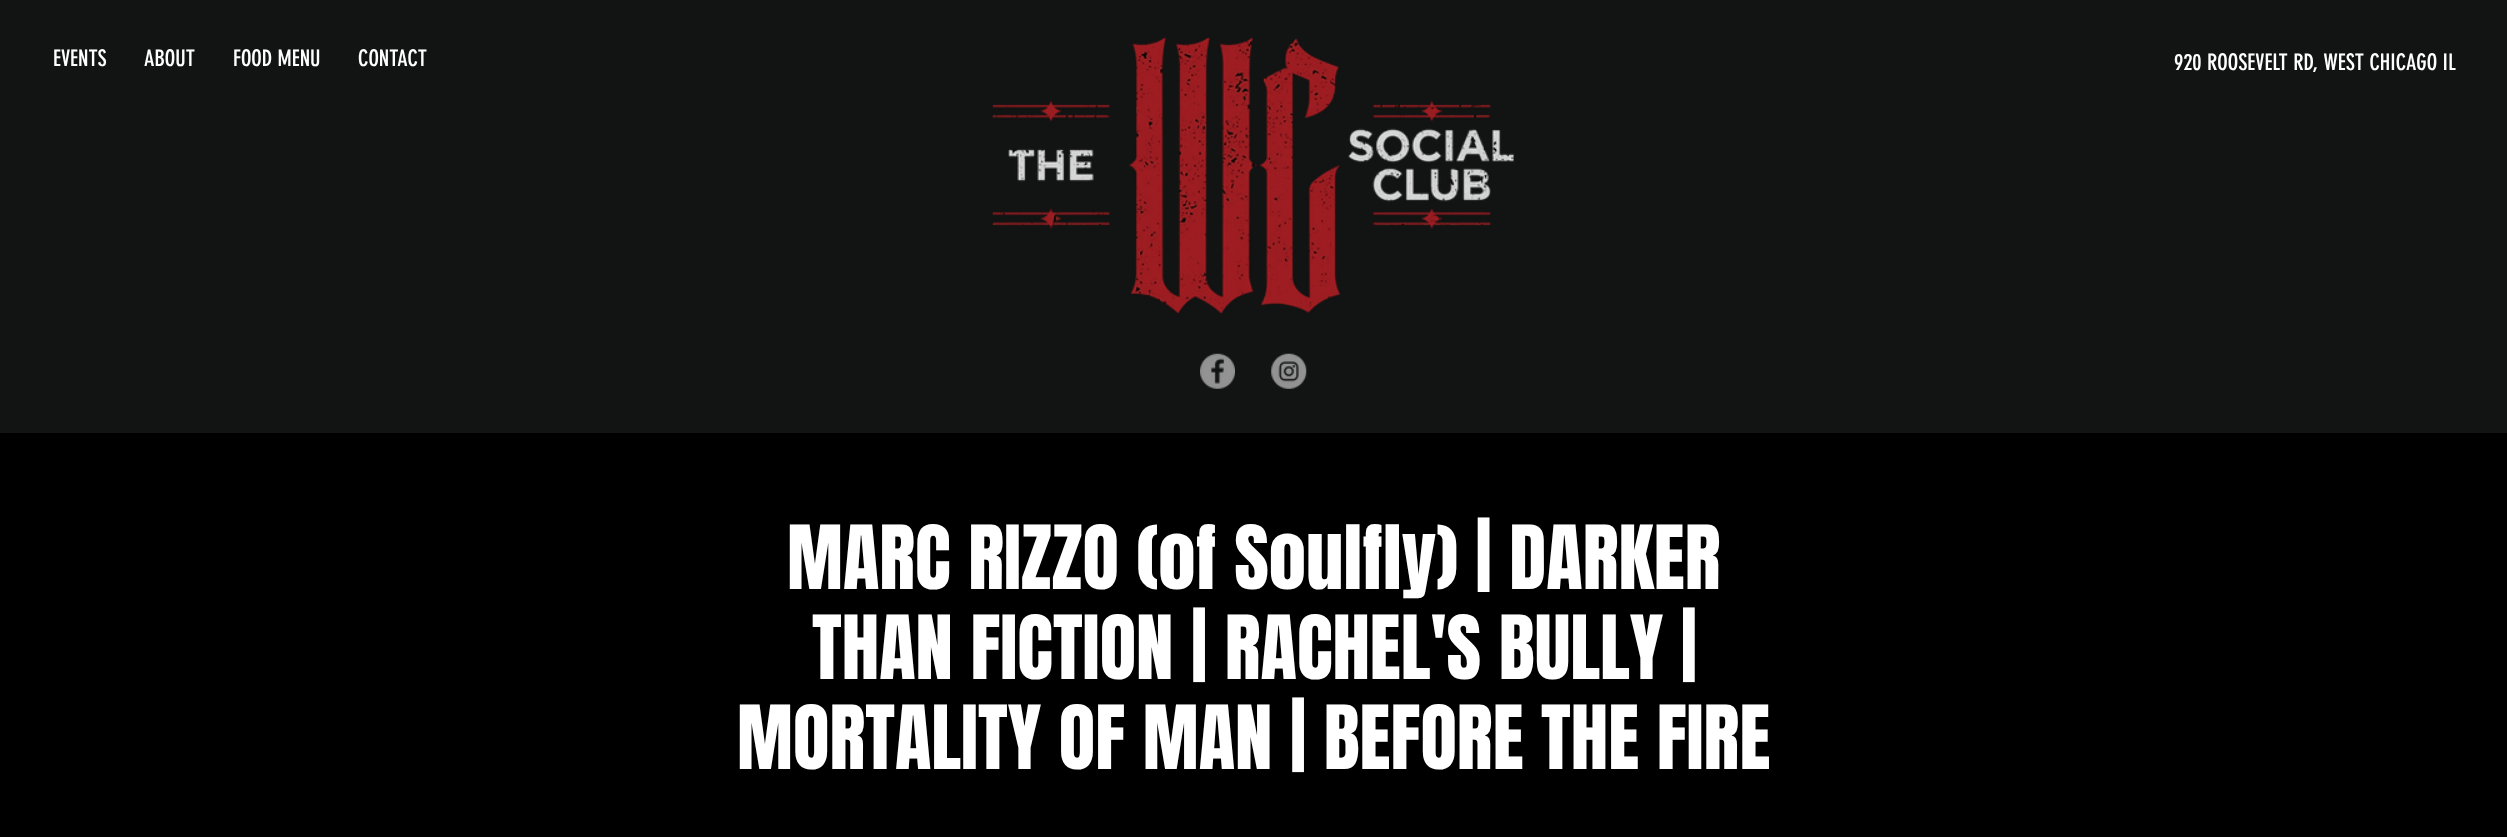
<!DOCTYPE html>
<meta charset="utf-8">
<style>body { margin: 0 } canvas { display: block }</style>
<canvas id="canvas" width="2507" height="837"></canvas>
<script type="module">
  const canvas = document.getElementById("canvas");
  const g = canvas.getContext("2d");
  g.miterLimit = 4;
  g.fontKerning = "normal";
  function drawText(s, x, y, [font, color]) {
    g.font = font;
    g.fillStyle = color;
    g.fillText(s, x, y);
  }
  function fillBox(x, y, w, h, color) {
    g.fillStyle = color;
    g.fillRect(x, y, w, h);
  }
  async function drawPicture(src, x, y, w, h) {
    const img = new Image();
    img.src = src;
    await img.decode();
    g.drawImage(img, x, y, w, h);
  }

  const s1 = ["22.5px 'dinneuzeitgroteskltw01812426'", "#FFFFFF"];
  const s2 = ["75px Anton", "#FFFFFF"];

  fillBox(0, 0, 2507, 837, "#000000");
  fillBox(0, 0, 2507, 433, "#121313");
  await drawPicture("pic1.png", 992, 37, 522, 277);
  await drawPicture("pic2.png", 1200, 353, 35, 36);
  await drawPicture("pic3.png", 1271, 353, 36, 36);
  drawText("EVENTS", 53, 66, s1);
  drawText("ABOUT", 144, 66, s1);
  drawText("FOOD MENU", 233, 66, s1);
  drawText("CONTACT", 358, 66, s1);
  drawText("920 ROOSEVELT RD, WEST CHICAGO IL", 2174, 70, s1);
  drawText("MARC RIZZO (of Soulfly) | DARKER", 787, 589, s2);
  drawText("THAN FICTION | RACHEL'S BULLY |", 812, 679, s2);
  drawText("MORTALITY OF MAN | BEFORE THE FIRE", 737, 769, s2);
</script>
